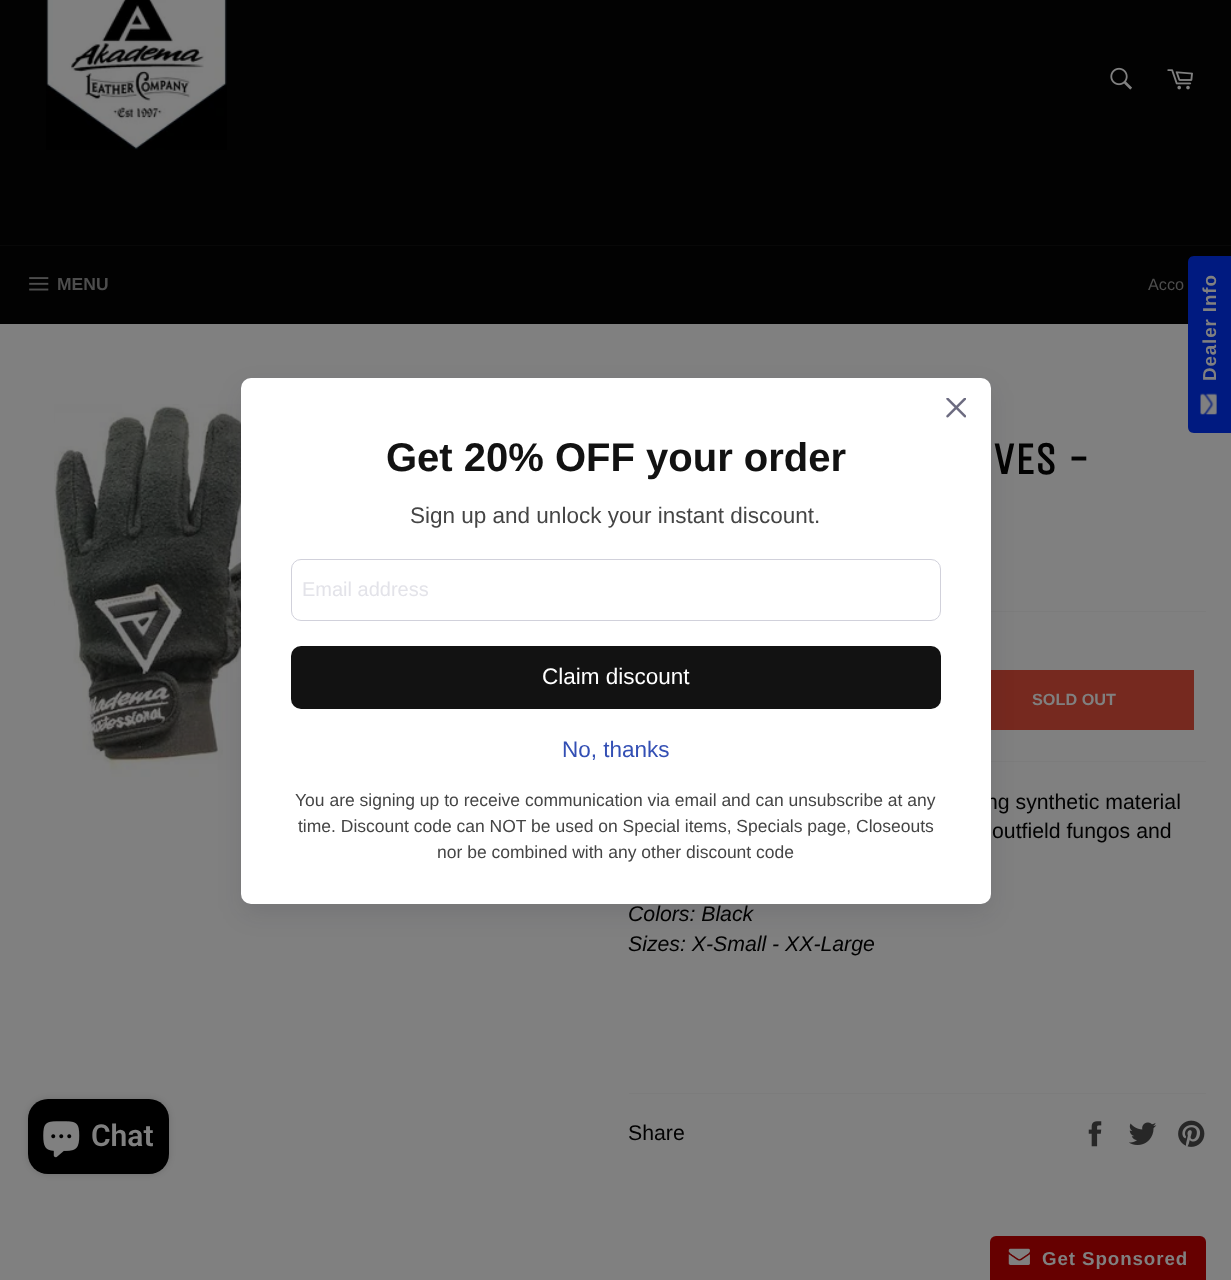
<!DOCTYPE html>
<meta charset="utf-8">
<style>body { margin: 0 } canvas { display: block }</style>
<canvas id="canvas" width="1231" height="1280"></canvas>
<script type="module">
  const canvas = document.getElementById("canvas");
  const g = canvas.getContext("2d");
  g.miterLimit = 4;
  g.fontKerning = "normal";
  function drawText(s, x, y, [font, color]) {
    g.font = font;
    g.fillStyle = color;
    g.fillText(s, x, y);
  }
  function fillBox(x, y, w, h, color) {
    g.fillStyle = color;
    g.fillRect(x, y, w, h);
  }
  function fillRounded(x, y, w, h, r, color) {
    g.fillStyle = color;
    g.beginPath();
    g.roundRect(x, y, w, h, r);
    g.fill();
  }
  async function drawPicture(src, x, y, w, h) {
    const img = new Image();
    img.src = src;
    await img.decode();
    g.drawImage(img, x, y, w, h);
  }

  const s1 = ["bold 17.5px Liberation Sans", "#4D4D4D"];
  const s2 = ["16.25px Liberation Sans", "#4D4D4D"];
  const s3 = ["21.25px Liberation Sans", "#020202"];
  const s4 = ["bold 40px Liberation Sans", "#121212"];
  const s5 = ["22.5px Liberation Sans", "#454545"];
  const s6 = ["20px Liberation Sans", "#E3E3E9"];
  const s7 = ["22.5px Liberation Sans", "#FFFFFF"];
  const s8 = ["22.5px Liberation Sans", "#334FB4"];
  const s9 = ["17.5px Liberation Sans", "#454545"];
  const s10 = ["600 30px Roboto", "#808080"];
  const s11 = ["bold 45px Unica One", "#020202"];
  const s12 = ["bold 16.25px Liberation Sans", "#808080"];
  const s13 = ["italic 21.25px Liberation Sans", "#020202"];
  const s14 = ["bold 18.75px Liberation Sans", "#808080"];

  fillBox(0, 0, 1231, 1280, "#020202");
  await drawPicture("pic1.png", 46, 0, 181, 150);
  await drawPicture("pic2.png", 1110, 67, 22, 23);
  await drawPicture("pic3.png", 1167, 69, 26, 21);
  fillBox(0, 245, 1231, 1, "#080808");
  await drawPicture("pic4.png", 29, 277, 20, 14);
  drawText("MENU", 57, 290, s1);
  drawText("Acco", 1148, 290, s2);
  fillBox(0, 324, 1231, 956, "#808080");
  g.fillStyle = "#001A80";
  g.beginPath();
  g.moveTo(1188, 427);
  g.lineTo(1188, 262);
  g.bezierCurveTo(1188, 259, 1190, 256, 1194, 256);
  g.lineTo(1231, 256);
  g.lineTo(1231, 433);
  g.lineTo(1194, 433);
  g.bezierCurveTo(1190, 433, 1188, 430, 1188, 427);
  g.closePath();
  g.fill();
  g.letterSpacing = "0.9px";
  g.font = "bold 18.75px Liberation Sans";
  g.fillStyle = "#808080";
  g.save();
  g.translate(1216, 381);
  g.rotate(-90 * Math.PI / 180);
  g.fillText("Dealer Info", 0, 0);
  g.restore();
  await drawPicture("pic5.png", 1200, 393, 17, 22);
  await drawPicture("pic8.png", 54, 404, 187, 373);
  fillBox(991, 611, 215, 1, "#7C7C7C");
  fillBox(991, 670, 203, 60, "#76291F");
  fillBox(991, 761, 215, 1, "#7C7C7C");
  g.fillStyle = "rgba(18, 17, 39, 0.1)";
  g.filter = "blur(12.5px)";
  g.beginPath();
  g.roundRect(241, 388, 750, 526, 10);
  g.fill();
  g.filter = "none";
  g.letterSpacing = "0px";
  drawText("ng synthetic material", 986, 809, s3);
  fillRounded(241, 378, 750, 526, 10, "#FFFFFF");
  await drawPicture("pic6.png", 946, 398, 20, 20);
  drawText("Get 20% OFF your order", 386, 471, s4);
  drawText("Sign up and unlock your instant discount.", 410, 523, s5);
  g.beginPath();
  g.roundRect(291.5, 559.5, 649, 61, 9.5);
  g.strokeStyle = "#D1D1DB";
  g.stroke();
  drawText("Email address", 302, 596, s6);
  fillRounded(291, 646, 650, 63, 10, "#121212");
  drawText("Claim discount", 542, 684, s7);
  drawText("No, thanks", 562, 757, s8);
  drawText("You are signing up to receive communication via email and can unsubscribe at any", 295, 806, s9);
  drawText("time. Discount code can NOT be used on Special items, Specials page, Closeouts", 298, 832, s9);
  drawText("nor be combined with any other discount code", 437, 858, s9);
  g.fillStyle = "rgba(0, 0, 0, 0.15)";
  g.filter = "blur(3px)";
  g.beginPath();
  g.roundRect(28, 1099, 141, 75, 20);
  g.fill();
  g.filter = "none";
  fillRounded(28, 1099, 141, 75, 20, "#000000");
  await drawPicture("pic7.png", 43, 1121, 37, 37);
  drawText("Chat", 91, 1146, s10);
  drawText("VES -", 993, 474, s11);
  drawText("SOLD OUT", 1032, 705, s12);
  drawText("outfield fungos and", 992, 838, s3);
  drawText("Colors: Black", 628, 921, s13);
  drawText("Sizes: X-Small - XX-Large", 628, 951, s13);
  fillBox(629, 1093, 577, 1, "#7C7C7C");
  drawText("Share", 628, 1140, s3);
  await drawPicture("pic9.png", 1088, 1121, 14, 26);
  await drawPicture("pic10.png", 1129, 1122, 28, 23);
  await drawPicture("pic11.png", 1178, 1120, 27, 27);
  g.fillStyle = "#660000";
  g.beginPath();
  g.roundRect(990, 1236, 216, 44, [6, 6, 0, 0]);
  g.fill();
  await drawPicture("pic12.png", 1008, 1248, 22, 17);
  g.letterSpacing = "0.9px";
  drawText("Get Sponsored", 1042, 1265, s14);
</script>
